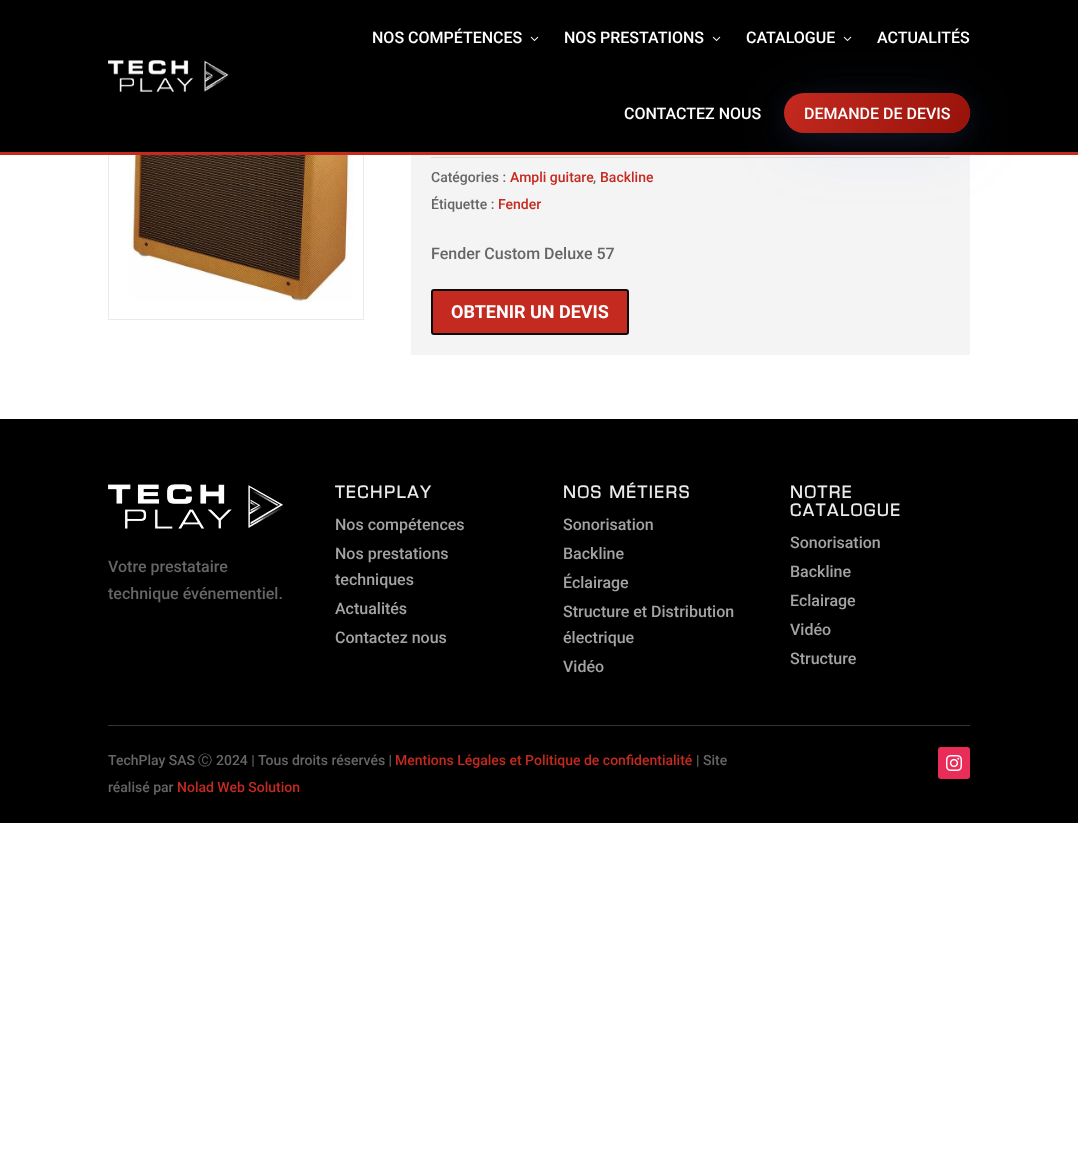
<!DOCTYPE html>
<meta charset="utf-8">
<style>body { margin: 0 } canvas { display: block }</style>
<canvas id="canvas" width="1078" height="1175"></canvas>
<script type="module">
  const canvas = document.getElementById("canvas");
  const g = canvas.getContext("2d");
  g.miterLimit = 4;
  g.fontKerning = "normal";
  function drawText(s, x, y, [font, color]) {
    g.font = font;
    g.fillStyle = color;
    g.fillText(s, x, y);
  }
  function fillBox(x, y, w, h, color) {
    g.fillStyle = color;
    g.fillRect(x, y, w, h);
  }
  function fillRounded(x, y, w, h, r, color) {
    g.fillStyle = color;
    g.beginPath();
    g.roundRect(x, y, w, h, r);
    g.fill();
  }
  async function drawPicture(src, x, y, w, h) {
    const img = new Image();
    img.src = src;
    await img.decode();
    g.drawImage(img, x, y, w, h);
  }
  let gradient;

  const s1 = ["500 16px Roboto", "#FFFFFF"];
  const s2 = ["500 14px Roboto", "#666666"];
  const s3 = ["500 14px Roboto", "#C52A20"];
  const s4 = ["500 16px Roboto", "#666666"];
  const s5 = ["bold 18px Roboto", "#FFFFFF"];
  const s6 = ["bold 18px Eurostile", "#EAEAEA"];
  const s7 = ["500 16px Roboto", "#A3A3A3"];
  const s8 = ["500 14px WenQuanYi Zen Hei", "#666666"];

  fillBox(0, 0, 1078, 1175, "#FFFFFF");
  g.strokeStyle = "#EAEAEA";
  g.strokeRect(108.5, 65.5, 255, 254);
  fillBox(0, 0, 1078, 152, "#000000");
  fillBox(0, 152, 1078, 3, "#C52A20");
  await drawPicture("pic1.png", 108, 60, 121, 32);
  drawText("NOS COMPÉTENCES", 372, 43, s1);
  await drawPicture("pic2.png", 530, 36, 9, 5);
  drawText("NOS PRESTATIONS", 564, 43, s1);
  await drawPicture("pic2.png", 712, 36, 9, 5);
  drawText("CATALOGUE", 746, 43, s1);
  await drawPicture("pic2.png", 843, 36, 9, 5);
  drawText("ACTUALITÉS", 877, 43, s1);
  drawText("CONTACTEZ NOUS", 624, 119, s1);
  fillBox(411, 155, 559, 200, "#F4F4F4");
  fillBox(431, 157, 519, 1, "#DADADA");
  g.fillStyle = "rgba(103, 151, 255, 0.1)";
  g.filter = "blur(32px)";
  g.beginPath();
  g.roundRect(784, 105, 186, 40, 20);
  g.fill();
  g.filter = "none";
  g.filter = "blur(12px)";
  g.beginPath();
  g.roundRect(784, 97, 186, 40, 20);
  g.fill();
  g.filter = "none";
  fillRounded(784, 93, 186, 40, 20, "#C52A20");
  gradient = g.createLinearGradient(799, 68, 955, 158);
  gradient.addColorStop(0, "rgba(151, 18, 9, 0)");
  gradient.addColorStop(1, "#971209");
  g.fillStyle = gradient;
  g.beginPath();
  g.roundRect(784, 93, 186, 40, 20);
  g.fill();
  drawText("DEMANDE DE DEVIS", 804, 119, s1);
  await drawPicture("pic3.png", 129, 155, 224, 147);
  drawText("Catégories :", 431, 182, s2);
  drawText("Ampli guitare", 510, 182, s3);
  drawText(",", 593, 182, s2);
  drawText("Backline", 600, 182, s3);
  drawText("Étiquette :", 431, 209, s2);
  drawText("Fender", 498, 209, s3);
  drawText("Fender Custom Deluxe 57", 431, 259, s4);
  g.fillStyle = "#C52A20";
  g.beginPath();
  g.roundRect(432, 290, 196, 44, 2);
  g.fill();
  g.strokeStyle = "#0A0A0A";
  g.lineWidth = 2;
  g.stroke();
  drawText("OBTENIR UN DEVIS", 451, 318, s5);
  fillBox(0, 419, 1078, 404, "#000000");
  await drawPicture("pic4.png", 108, 484, 176, 45);
  drawText("Votre prestataire", 108, 572, s4);
  drawText("technique événementiel.", 108, 599, s4);
  g.letterSpacing = "2px";
  drawText("TECHPLAY", 335, 498, s6);
  g.letterSpacing = "0px";
  drawText("Nos compétences", 335, 530, s7);
  drawText("Nos prestations", 335, 559, s7);
  drawText("techniques", 335, 585, s7);
  drawText("Actualités", 335, 614, s7);
  drawText("Contactez nous", 335, 643, s7);
  g.letterSpacing = "2px";
  drawText("NOS MÉTIERS", 563, 498, s6);
  g.letterSpacing = "0px";
  drawText("Sonorisation", 563, 530, s7);
  drawText("Backline", 563, 559, s7);
  drawText("Éclairage", 563, 588, s7);
  drawText("Structure et Distribution", 563, 617, s7);
  drawText("électrique", 563, 643, s7);
  drawText("Vidéo", 563, 672, s7);
  g.letterSpacing = "2px";
  drawText("NOTRE", 790, 498, s6);
  drawText("CATALOGUE", 790, 516, s6);
  g.letterSpacing = "0px";
  drawText("Sonorisation", 790, 548, s7);
  drawText("Backline", 790, 577, s7);
  drawText("Eclairage", 790, 606, s7);
  drawText("Vidéo", 790, 635, s7);
  drawText("Structure", 790, 664, s7);
  fillBox(108, 725, 862, 1, "#333333");
  drawText("TechPlay SAS", 108, 765, s2);
  drawText("Ⓒ", 198, 765, s8);
  drawText("2024 | Tous droits réservés |", 216, 765, s2);
  drawText("Mentions Légales et Politique de confidentialité", 395, 765, s3);
  drawText("| Site", 696, 765, s2);
  drawText("réalisé par", 108, 792, s2);
  drawText("Nolad Web Solution", 177, 792, s3);
  fillRounded(938, 747, 32, 32, 3, "#EA2C59");
  await drawPicture("pic5.png", 946, 755, 16, 16);
</script>
